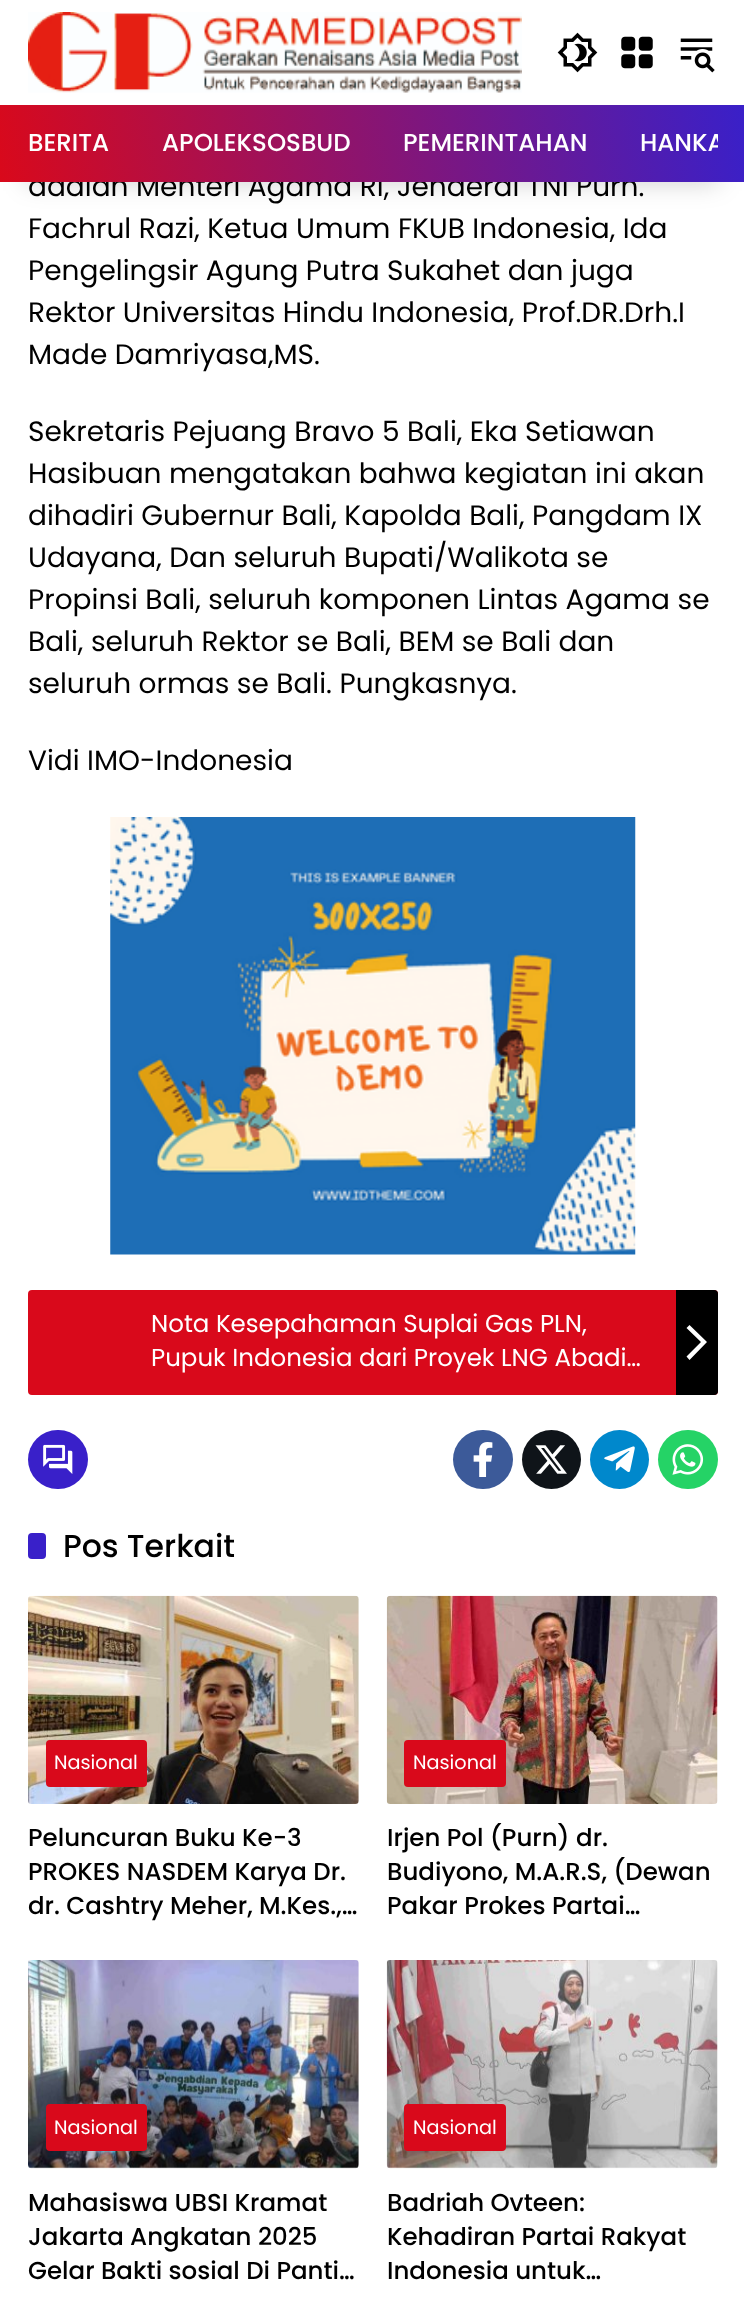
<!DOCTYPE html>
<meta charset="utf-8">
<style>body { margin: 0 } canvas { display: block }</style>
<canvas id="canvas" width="744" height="2319"></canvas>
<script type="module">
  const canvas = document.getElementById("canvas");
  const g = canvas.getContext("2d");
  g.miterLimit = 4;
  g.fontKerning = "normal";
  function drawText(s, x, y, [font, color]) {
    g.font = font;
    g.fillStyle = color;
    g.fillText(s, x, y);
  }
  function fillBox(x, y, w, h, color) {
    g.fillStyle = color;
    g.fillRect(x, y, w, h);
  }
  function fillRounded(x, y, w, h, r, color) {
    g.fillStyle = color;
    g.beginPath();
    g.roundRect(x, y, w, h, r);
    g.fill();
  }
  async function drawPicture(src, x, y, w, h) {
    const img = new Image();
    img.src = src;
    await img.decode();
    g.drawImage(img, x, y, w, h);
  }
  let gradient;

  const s1 = ["28px Poppins", "#000000"];
  const s2 = ["500 24.5px Poppins", "#FFFFFF"];
  const s3 = ["24.5px Poppins", "#FFFFFF"];
  const s4 = ["500 31.5px Poppins", "#000000"];
  const s5 = ["19.25px Poppins", "#FFFFFF"];
  const s6 = ["500 24.5px Poppins", "#000000"];

  fillBox(0, 0, 744, 2319, "#FFFFFF");
  await drawPicture("pic1.png", 28, 12, 494, 81);
  await drawPicture("pic2.png", 557, 32, 41, 41);
  await drawPicture("pic3.png", 621, 36, 32, 33);
  await drawPicture("pic4.png", 680, 38, 35, 35);
  g.fillStyle = "rgba(0, 0, 0, 0.2)";
  g.filter = "blur(13px)";
  g.beginPath();
  g.rect(26, 158, 693, 24);
  g.fill();
  g.filter = "none";
  drawText("adalah Menteri Agama RI, Jenderal TNI Purn.", 28, 196, s1);
  gradient = g.createLinearGradient(4.7, 208, 741, 79);
  gradient.addColorStop(0, "#D9091B");
  gradient.addColorStop(1, "#3920C9");
  g.fillStyle = gradient;
  g.fillRect(0, 105, 744, 77);
  drawText("BERITA", 28, 151, s2);
  drawText("APOLEKSOSBUD", 162, 151, s2);
  drawText("PEMERINTAHAN", 403, 151, s2);
  g.save();
  g.beginPath();
  g.rect(28, 105, 690, 77);
  g.clip();
  drawText("HANKA", 640, 151, s2);
  g.restore();
  drawText("Fachrul Razi, Ketua Umum FKUB Indonesia, Ida", 28, 238, s1);
  drawText("Pengelingsir Agung Putra Sukahet dan juga", 28, 280, s1);
  drawText("Rektor Universitas Hindu Indonesia, Prof.DR.Drh.I", 28, 322, s1);
  drawText("Made Damriyasa,MS.", 28, 364, s1);
  drawText("Sekretaris Pejuang Bravo 5 Bali, Eka Setiawan", 28, 441, s1);
  drawText("Hasibuan mengatakan bahwa kegiatan ini akan", 28, 483, s1);
  drawText("dihadiri Gubernur Bali, Kapolda Bali, Pangdam IX", 28, 525, s1);
  drawText("Udayana, Dan seluruh Bupati/Walikota se", 28, 567, s1);
  drawText("Propinsi Bali, seluruh komponen Lintas Agama se", 28, 609, s1);
  drawText("Bali, seluruh Rektor se Bali, BEM se Bali dan", 28, 651, s1);
  drawText("seluruh ormas se Bali. Pungkasnya.", 28, 693, s1);
  drawText("Vidi IMO-Indonesia", 28, 770, s1);
  await drawPicture("pic5.png", 110, 817, 526, 438);
  fillRounded(28, 1290, 690, 105, 4, "#D9091B");
  drawText("Nota Kesepahaman Suplai Gas PLN,", 151, 1332, s3);
  drawText("Pupuk Indonesia dari Proyek LNG Abadi…", 151, 1366, s3);
  g.fillStyle = "#000000";
  g.beginPath();
  g.roundRect(676, 1290, 42, 105, [0, 4, 4, 0]);
  g.fill();
  g.fillStyle = "#FFFFFF";
  g.beginPath();
  g.moveTo(686.5, 1356.5);
  g.lineTo(689.5, 1360);
  g.lineTo(707, 1342);
  g.lineTo(689.5, 1325);
  g.lineTo(686.5, 1328);
  g.lineTo(701, 1342);
  g.closePath();
  g.fill();
  fillRounded(28, 1430, 60, 59, 29.5, "#3920C9");
  await drawPicture("pic6.png", 43, 1444, 30, 30);
  fillRounded(453, 1430, 60, 59, 29.5, "#3C5A99");
  await drawPicture("pic7.png", 473, 1442, 20, 35);
  g.fillStyle = "#0F1419";
  g.beginPath();
  g.arc(551.5, 1459.5, 29.5, 0, Math.PI * 2);
  g.fill();
  await drawPicture("pic8.png", 535, 1445, 32, 29);
  g.fillStyle = "#0088CC";
  g.beginPath();
  g.arc(619.5, 1459.5, 29.5, 0, Math.PI * 2);
  g.fill();
  await drawPicture("pic9.png", 604, 1446, 31, 26);
  fillRounded(658, 1430, 60, 59, 29.5, "#25D366");
  await drawPicture("pic10.png", 672, 1444, 32, 31);
  fillRounded(28, 1533, 18, 26, 4, "#3920C9");
  drawText("Pos Terkait", 63, 1557, s4);
  await drawPicture("pic11.png", 28, 1595, 331, 209);
  fillRounded(46, 1740, 101, 47, 4, "#D9091B");
  drawText("Nasional", 54, 1769, s5);
  drawText("Peluncuran Buku Ke-3", 28, 1846, s6);
  drawText("PROKES NASDEM Karya Dr.", 28, 1880, s6);
  drawText("dr. Cashtry Meher, M.Kes.,…", 28, 1914, s6);
  await drawPicture("pic12.png", 386, 1595, 332, 209);
  fillRounded(404, 1740, 102, 47, 4, "#D9091B");
  drawText("Nasional", 413, 1769, s5);
  drawText("Irjen Pol (Purn) dr.", 387, 1846, s6);
  drawText("Budiyono, M.A.R.S, (Dewan", 387, 1880, s6);
  drawText("Pakar Prokes Partai…", 387, 1914, s6);
  await drawPicture("pic13.png", 28, 1960, 331, 209);
  fillRounded(46, 2104, 101, 47, 4, "#D9091B");
  drawText("Nasional", 54, 2134, s5);
  drawText("Mahasiswa UBSI Kramat", 28, 2211, s6);
  drawText("Jakarta Angkatan 2025", 28, 2245, s6);
  drawText("Gelar Bakti sosial Di Panti…", 28, 2279, s6);
  await drawPicture("pic14.png", 386, 1960, 332, 209);
  fillRounded(404, 2104, 102, 47, 4, "#D9091B");
  drawText("Nasional", 413, 2134, s5);
  drawText("Badriah Ovteen:", 387, 2211, s6);
  drawText("Kehadiran Partai Rakyat", 387, 2245, s6);
  drawText("Indonesia untuk…", 387, 2279, s6);
</script>
